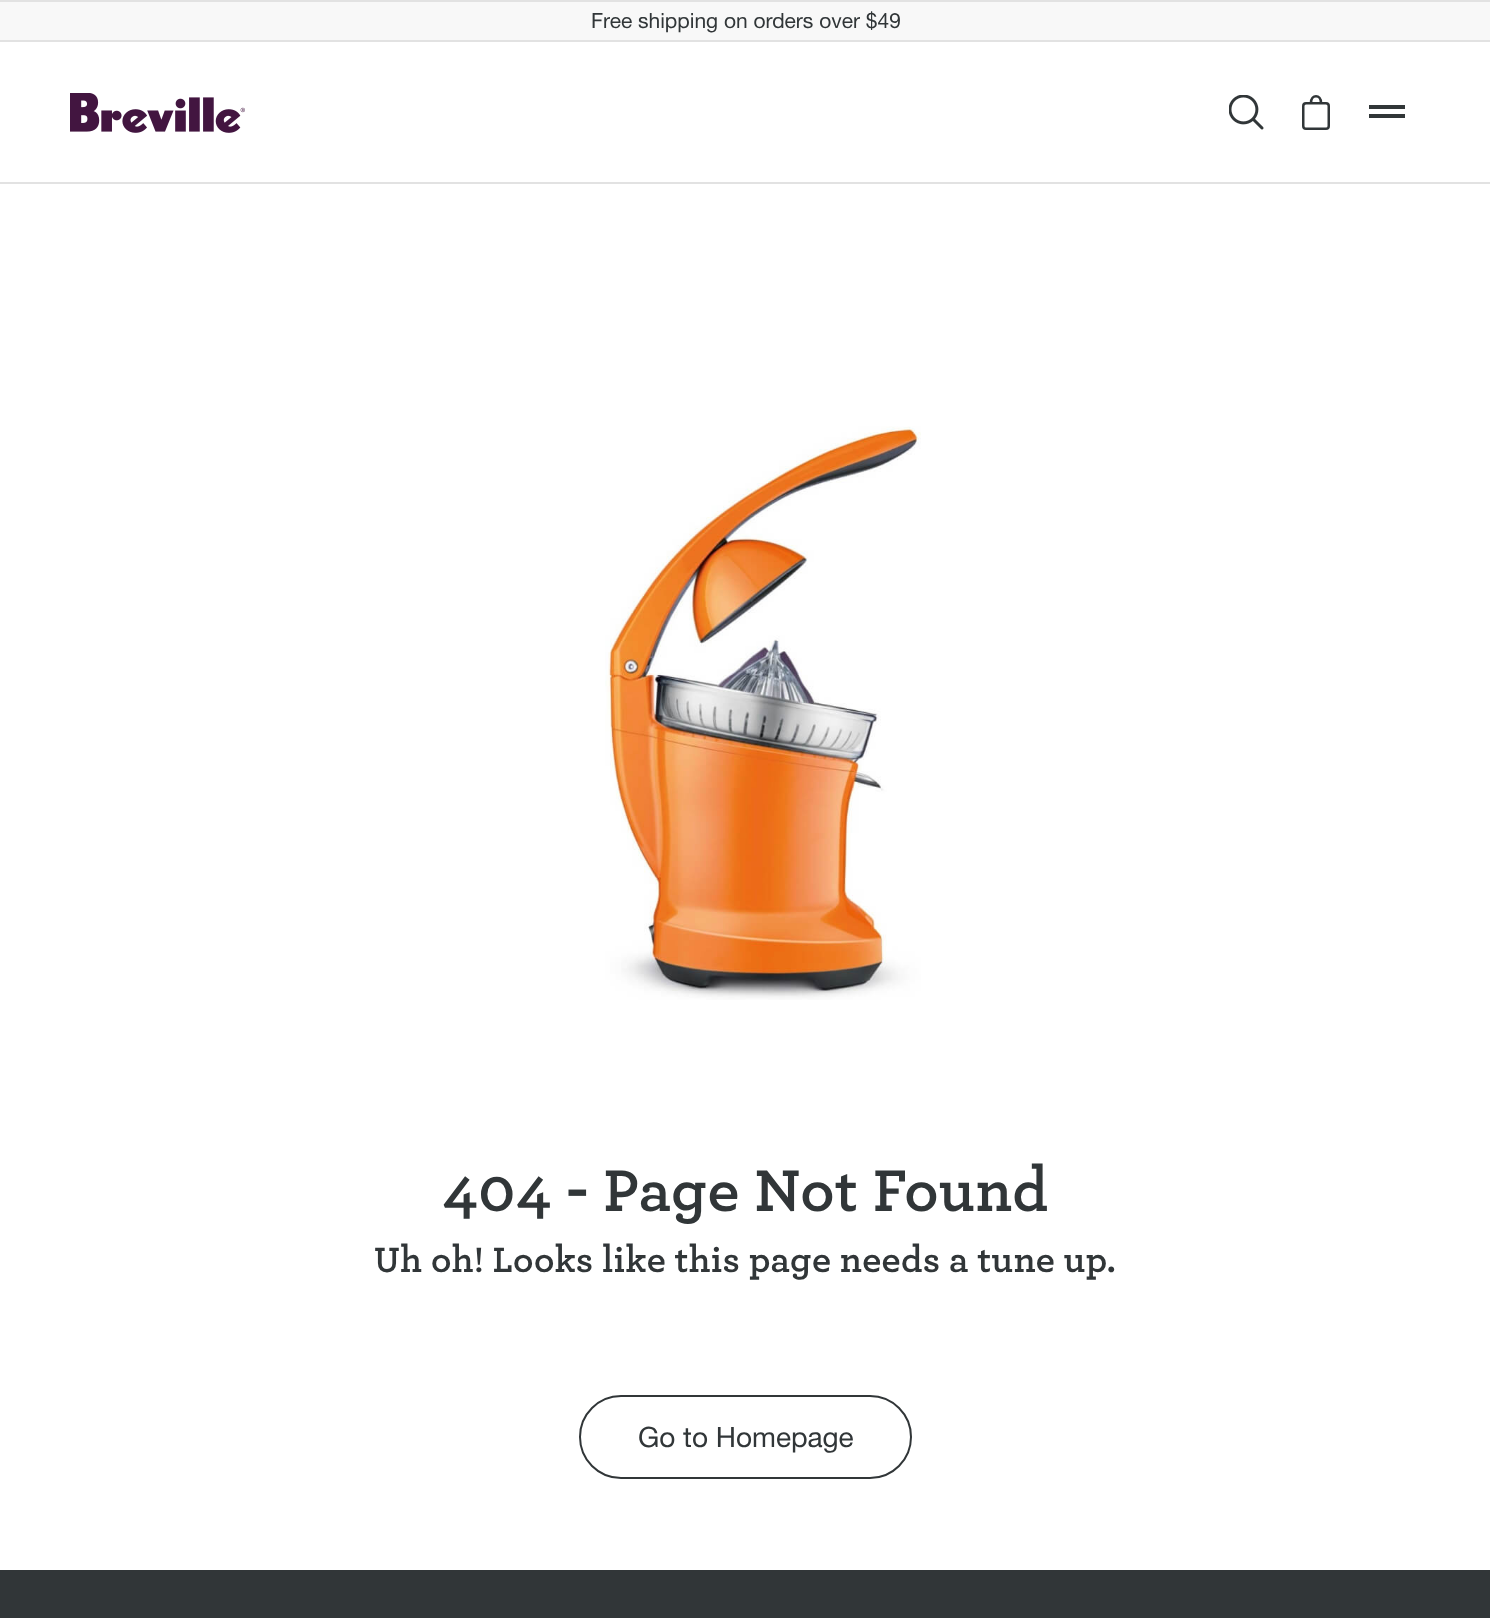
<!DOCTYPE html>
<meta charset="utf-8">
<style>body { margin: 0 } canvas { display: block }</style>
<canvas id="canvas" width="1490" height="1618"></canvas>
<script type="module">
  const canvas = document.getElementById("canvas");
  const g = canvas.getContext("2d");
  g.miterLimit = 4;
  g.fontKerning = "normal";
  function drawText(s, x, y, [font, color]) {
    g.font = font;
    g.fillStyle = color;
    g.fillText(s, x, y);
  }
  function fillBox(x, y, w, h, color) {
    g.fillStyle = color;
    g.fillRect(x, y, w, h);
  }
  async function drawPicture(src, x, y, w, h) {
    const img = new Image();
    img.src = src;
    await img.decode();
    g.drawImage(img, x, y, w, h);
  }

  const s1 = ["21px Helvetica Neue", "#313638"];
  const s2 = ["bold 56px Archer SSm", "#313638"];
  const s3 = ["bold 33.6px Archer SSm", "#313638"];
  const s4 = ["28px Helvetica Neue", "#313638"];

  fillBox(0, 0, 1490, 1618, "#313638");
  fillBox(0, 42, 1490, 140, "#FFFFFF");
  fillBox(0, 182, 1490, 2, "#E2E2E2");
  fillBox(0, 2, 1490, 38, "#F8F8F8");
  fillBox(0, 0, 1490, 2, "#E2E2E2");
  fillBox(0, 40, 1490, 2, "#E2E2E2");
  drawText("Free shipping on orders over $49", 591, 28, s1);
  await drawPicture("pic1.png", 70, 93, 175, 40);
  await drawPicture("pic2.png", 1229, 95, 35, 35);
  g.beginPath();
  g.roundRect(1303.25, 103.25, 25.5, 25.5, 2.75);
  g.strokeStyle = "#313638";
  g.lineWidth = 2.5;
  g.stroke();
  g.beginPath();
  g.moveTo(1311, 103);
  g.bezierCurveTo(1311, 94, 1321, 94, 1321, 103);
  g.lineWidth = 2.6;
  g.stroke();
  fillBox(1369, 105, 36, 4, "#313638");
  fillBox(1369, 114, 36, 4, "#313638");
  fillBox(0, 184, 1490, 1386, "#FFFFFF");
  await drawPicture("pic3.png", 605, 426, 316, 574);
  drawText("404 - Page Not Found", 442, 1211, s2);
  drawText("Uh oh! Looks like this page needs a tune up.", 374, 1272, s3);
  g.beginPath();
  g.roundRect(580, 1396, 331, 82, 41);
  g.lineWidth = 2;
  g.stroke();
  drawText("Go to Homepage", 638, 1447, s4);
</script>
